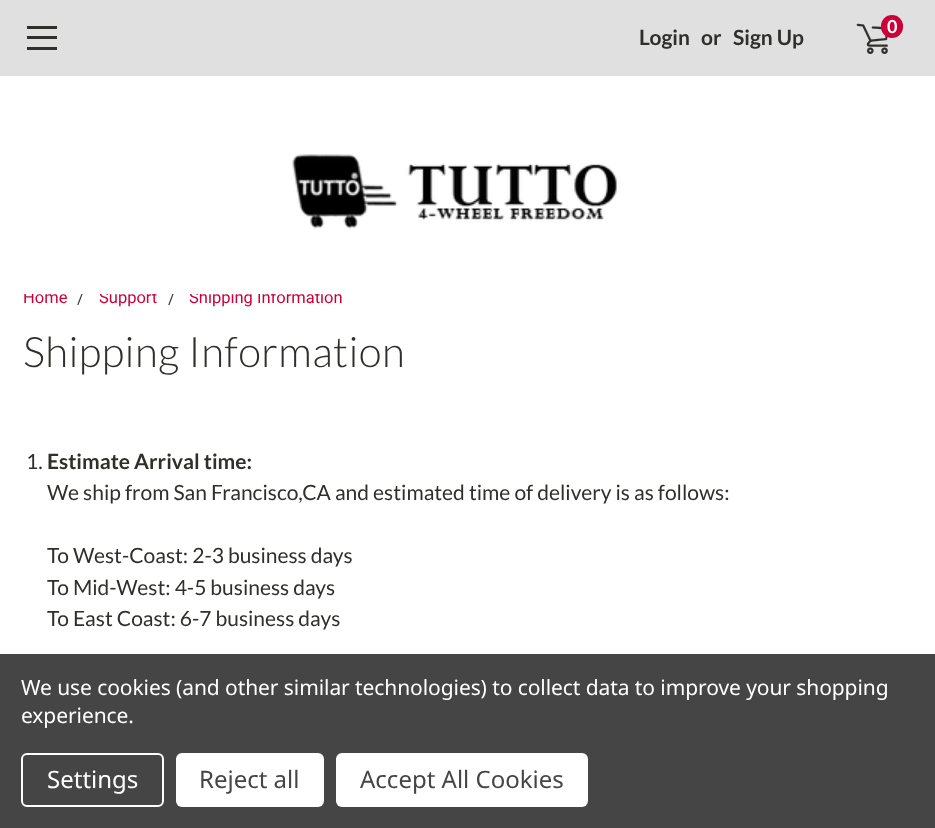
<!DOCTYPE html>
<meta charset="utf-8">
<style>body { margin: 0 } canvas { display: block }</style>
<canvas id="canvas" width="935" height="828"></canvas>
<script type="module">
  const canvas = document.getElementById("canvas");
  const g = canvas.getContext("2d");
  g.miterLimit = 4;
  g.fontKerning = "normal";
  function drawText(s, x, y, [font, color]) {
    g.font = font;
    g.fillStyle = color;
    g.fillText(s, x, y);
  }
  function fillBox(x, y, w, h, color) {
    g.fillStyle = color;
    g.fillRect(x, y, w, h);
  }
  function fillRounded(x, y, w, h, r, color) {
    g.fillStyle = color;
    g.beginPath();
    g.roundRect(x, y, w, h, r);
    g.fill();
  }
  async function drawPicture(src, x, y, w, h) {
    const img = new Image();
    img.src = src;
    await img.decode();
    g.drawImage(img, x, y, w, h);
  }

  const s1 = ["16.5px Roboto", "#CB0039"];
  const s2 = ["16.5px Roboto", "#393939"];
  const s3 = ["bold 18px Lato", "#FFFFFF"];
  const s4 = ["bold 21px Lato", "#2F2F2B"];
  const s5 = ["300 42px Lato", "#2F2F2B"];
  const s6 = ["21px Lato", "#2F2F2B"];
  const s7 = ["21px Noto Sans", "#FFFFFF"];
  const s8 = ["24px Noto Sans", "#FFFFFF"];
  const s9 = ["24px Noto Sans", "#454545"];

  fillBox(0, 0, 935, 828, "#FFFFFF");
  drawText("Home", 23, 303, s1);
  drawText("/", 77, 304, s2);
  drawText("Support", 99, 303, s1);
  drawText("/", 168, 304, s2);
  drawText("Shipping Information", 189, 303, s1);
  fillBox(23, 290, 300, 4, "#FFFFFF");
  fillBox(0, 0, 935, 76, "#E0E0E0");
  fillBox(27, 36, 30, 3, "#2F2F2B");
  fillBox(27, 26, 30, 3, "#2F2F2B");
  fillBox(27, 47, 30, 3, "#2F2F2B");
  await drawPicture("pic1.png", 856, 23, 32, 32);
  fillRounded(881, 15, 22, 23, 11, "#CB0039");
  drawText("0", 887, 33, s3);
  drawText("Login", 639, 45, s4);
  drawText("or", 701, 45, s4);
  drawText("Sign Up", 733, 45, s4);
  await drawPicture("pic2.png", 292, 154, 325, 75);
  g.letterSpacing = "0.4px";
  drawText("Shipping Information", 23, 367, s5);
  g.letterSpacing = "0px";
  drawText("1.", 26, 469, s6);
  drawText("Estimate Arrival time:", 47, 469, s4);
  drawText("We ship from San Francisco,CA and estimated time of delivery is as follows:", 47, 500, s6);
  drawText("To West-Coast: 2-3 business days", 47, 563, s6);
  drawText("To Mid-West: 4-5 business days", 47, 595, s6);
  drawText("To East Coast: 6-7 business days", 47, 626, s6);
  fillBox(0, 654, 935, 174, "#454545");
  g.letterSpacing = "-0.08px";
  drawText("We use cookies (and other similar technologies) to collect data to improve your shopping", 21, 695, s7);
  drawText("experience.", 21, 723, s7);
  g.beginPath();
  g.roundRect(22, 754, 141, 52, 5);
  g.strokeStyle = "#FFFFFF";
  g.lineWidth = 2;
  g.stroke();
  g.letterSpacing = "0px";
  drawText("Settings", 47, 788, s8);
  fillRounded(176, 753, 148, 54, 6, "#FFFFFF");
  drawText("Reject all", 199, 788, s9);
  fillRounded(336, 753, 252, 54, 6, "#FFFFFF");
  drawText("Accept All Cookies", 360, 788, s9);
</script>
